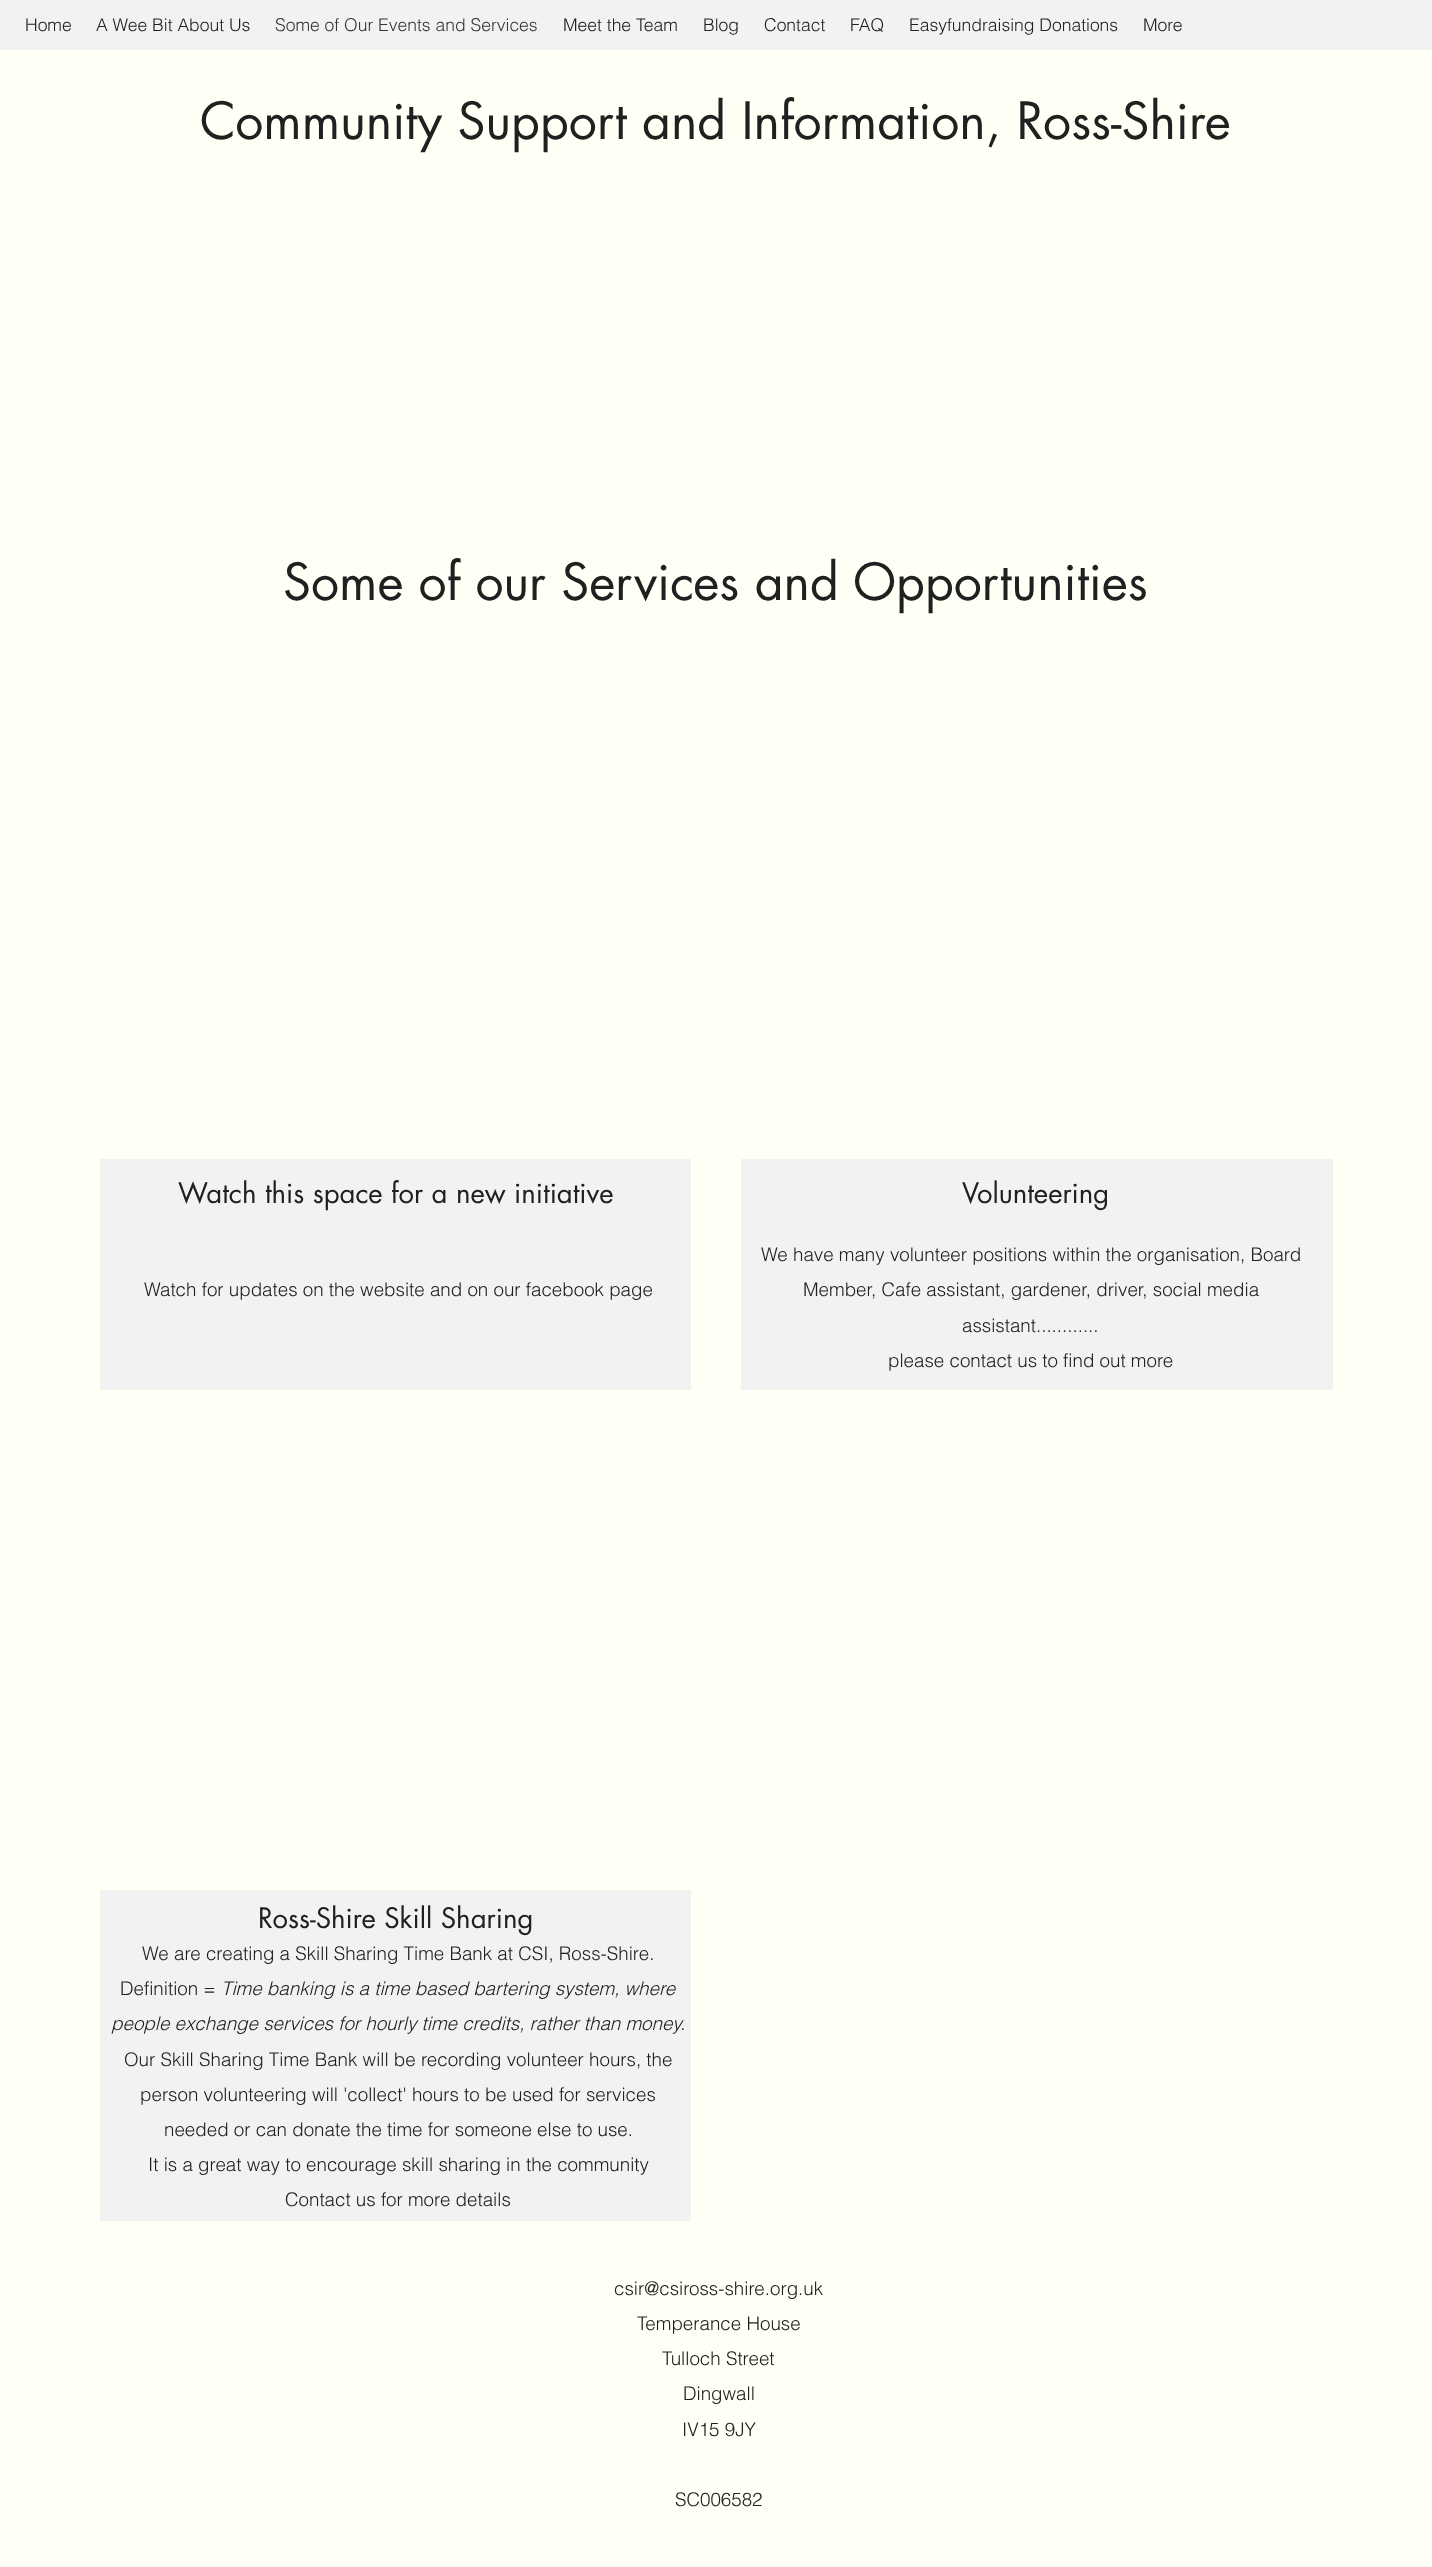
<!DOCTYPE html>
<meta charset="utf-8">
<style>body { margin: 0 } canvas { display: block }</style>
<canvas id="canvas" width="1432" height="2567"></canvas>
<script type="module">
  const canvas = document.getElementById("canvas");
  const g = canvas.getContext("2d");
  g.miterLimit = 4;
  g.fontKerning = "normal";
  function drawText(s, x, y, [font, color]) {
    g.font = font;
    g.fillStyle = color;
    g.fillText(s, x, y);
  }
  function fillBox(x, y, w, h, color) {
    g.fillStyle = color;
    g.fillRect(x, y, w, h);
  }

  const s1 = ["300 17.5px helvetica", "#202020"];
  const s2 = ["300 17.5px helvetica", "#363535"];
  const s3 = ["50px futura", "#202020"];
  const s4 = ["27.5px futura", "#202020"];
  const s5 = ["300 18.75px helvetica", "#202020"];
  const s6 = ["italic 300 18.75px helvetica", "#202020"];

  fillBox(0, 0, 1432, 2567, "#FFFFF6");
  fillBox(0, 0, 1432, 50, "#F2F2F2");
  drawText("Home", 25, 31, s1);
  drawText("A Wee Bit About Us", 96, 31, s1);
  drawText("Some of Our Events and Services", 275, 31, s2);
  drawText("Meet the Team", 563, 31, s1);
  drawText("Blog", 703, 31, s1);
  drawText("Contact", 764, 31, s1);
  drawText("FAQ", 850, 31, s1);
  drawText("Easyfundraising Donations", 909, 31, s1);
  drawText("More", 1143, 31, s1);
  drawText("Community Support and Information, Ross-Shire", 200, 139, s3);
  drawText("Some of our Services and Opportunities", 283, 600, s3);
  fillBox(100, 1159, 591, 231, "#F2F2F2");
  drawText("Watch this space for a new initiative", 178, 1203, s4);
  drawText("Watch for updates on the website and on our facebook page", 144, 1296, s5);
  fillBox(741, 1159, 592, 231, "#F2F2F2");
  drawText("Volunteering", 962, 1203, s4);
  drawText("We have many volunteer positions within the organisation, Board", 761, 1261, s5);
  drawText("Member, Cafe assistant, gardener, driver, social media", 803, 1296, s5);
  drawText("assistant............", 962, 1332, s5);
  drawText("please contact us to find out more", 888, 1367, s5);
  fillBox(100, 1890, 591, 331, "#F2F2F2");
  drawText("Ross-Shire Skill Sharing", 258, 1928, s4);
  drawText("We are creating a Skill Sharing Time Bank at CSI, Ross-Shire.", 142, 1960, s5);
  drawText("Definition =", 120, 1995, s5);
  drawText("Time banking is a time based bartering system, where", 221, 1995, s6);
  drawText("people exchange services for hourly time credits, rather than money.", 111, 2030, s6);
  drawText("Our Skill Sharing Time Bank will be recording volunteer hours, the", 124, 2066, s5);
  drawText("person volunteering will 'collect' hours to be used for services", 140, 2101, s5);
  drawText("needed or can donate the time for someone else to use.", 164, 2136, s5);
  drawText("It is a great way to encourage skill sharing in the community", 148, 2171, s5);
  drawText("Contact us for more details", 285, 2206, s5);
  drawText("csir@csiross-shire.org.uk", 614, 2295, s5);
  drawText("Temperance House", 637, 2330, s5);
  drawText("Tulloch Street", 662, 2365, s5);
  drawText("Dingwall", 683, 2400, s5);
  drawText("IV15 9JY", 682, 2436, s5);
  drawText("SC006582", 675, 2506, s5);
</script>
